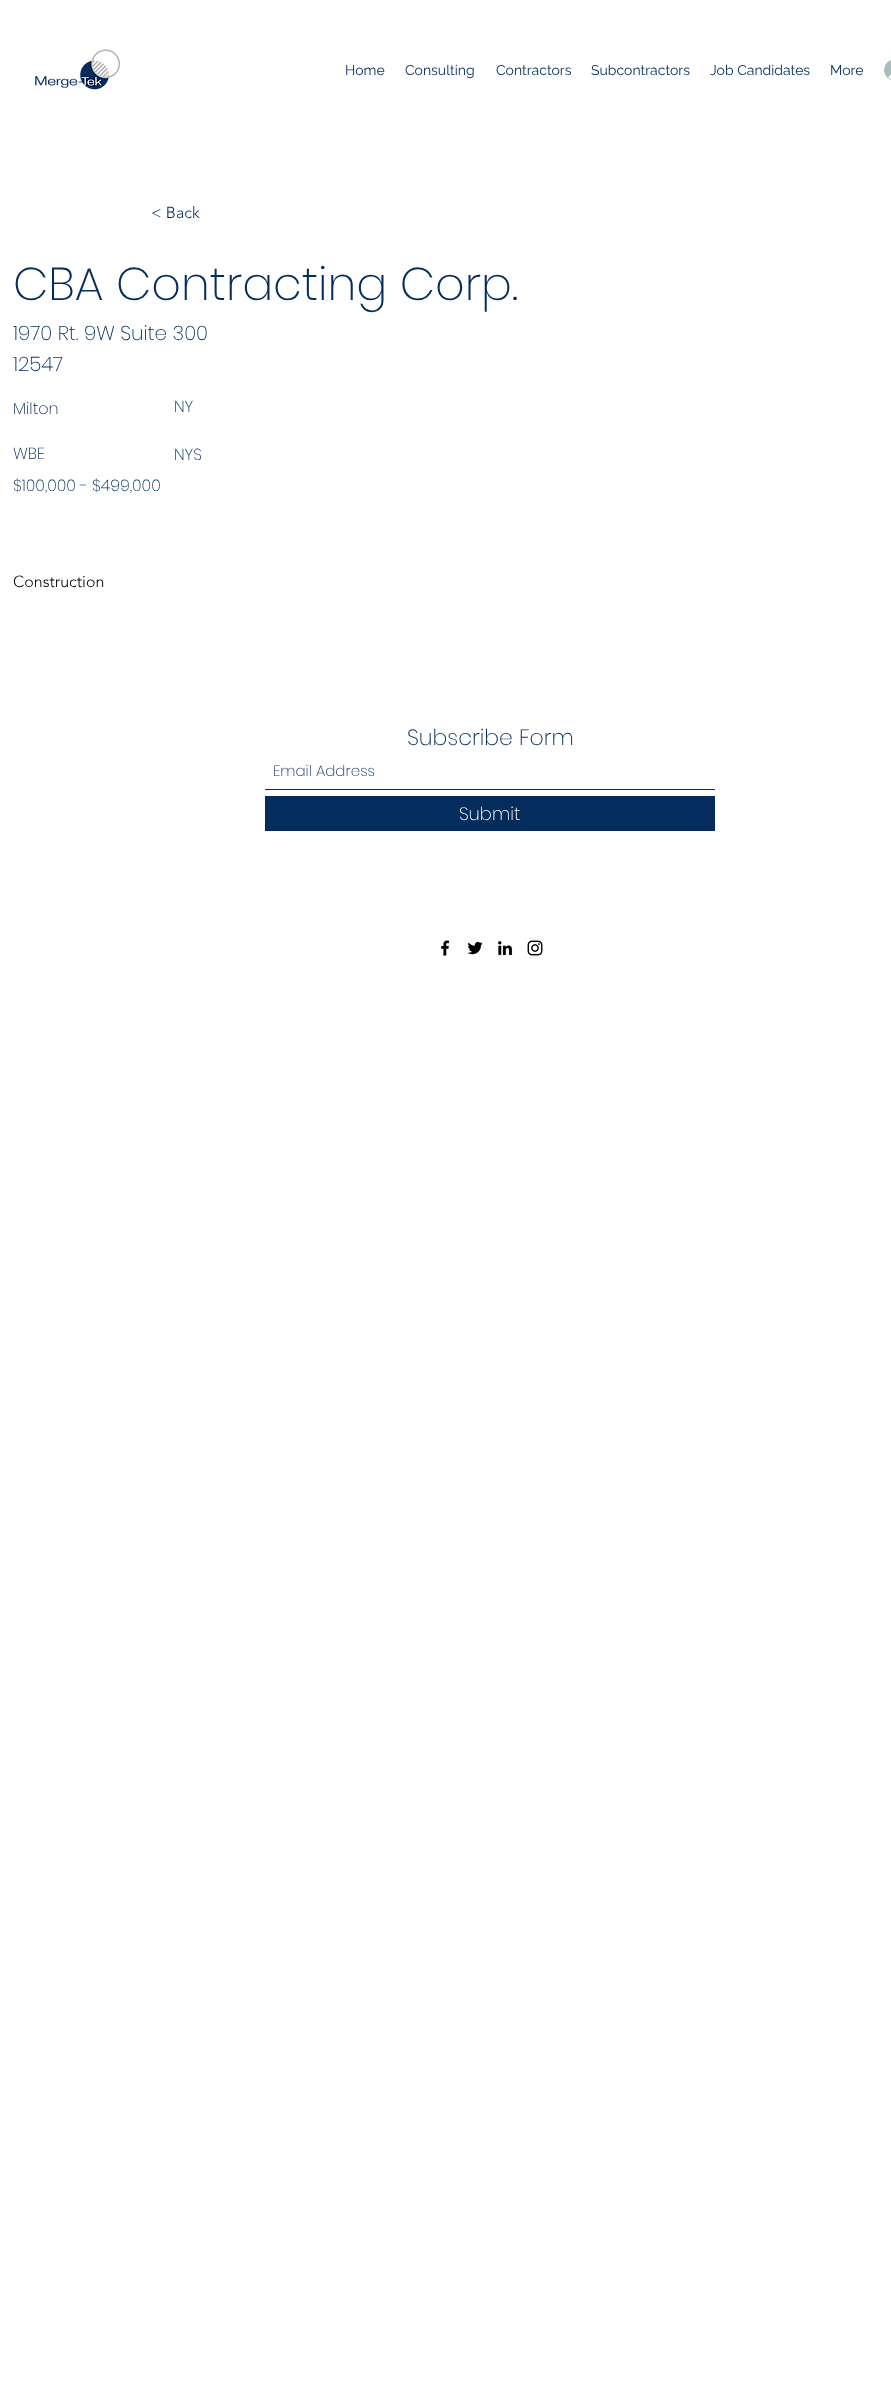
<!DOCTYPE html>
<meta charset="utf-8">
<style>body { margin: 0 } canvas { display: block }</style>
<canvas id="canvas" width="891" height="2390"></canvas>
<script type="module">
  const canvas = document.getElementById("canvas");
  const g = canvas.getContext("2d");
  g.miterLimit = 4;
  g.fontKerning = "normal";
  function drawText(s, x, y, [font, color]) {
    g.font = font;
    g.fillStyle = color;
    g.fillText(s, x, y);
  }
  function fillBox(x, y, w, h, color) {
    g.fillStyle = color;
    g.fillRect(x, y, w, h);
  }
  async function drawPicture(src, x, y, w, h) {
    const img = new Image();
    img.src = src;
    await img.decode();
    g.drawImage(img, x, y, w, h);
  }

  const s1 = ["14px Raleway", "#042C5C"];
  const s2 = ["300 16px 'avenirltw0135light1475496'", "#042C5C"];
  const s3 = ["200 46px Poppins", "#042C5C"];
  const s4 = ["200 20px Poppins", "#042C5C"];
  const s5 = ["200 16px Poppins", "#042C5C"];
  const s6 = ["300 16px 'avenirltw0135light1475496'", "#000000"];
  const s7 = ["200 22px Poppins", "#042C5C"];
  const s8 = ["200 15px Poppins", "#042C5C"];
  const s9 = ["200 18px Poppins", "#FFFFFF"];

  fillBox(0, 0, 891, 2390, "#FFFFFF");
  await drawPicture("pic1.png", 35, 49, 85, 41);
  drawText("Home", 345, 75, s1);
  drawText("Consulting", 405, 75, s1);
  drawText("Contractors", 496, 75, s1);
  drawText("Subcontractors", 591, 75, s1);
  drawText("Job Candidates", 710, 75, s1);
  drawText("More", 830, 75, s1);
  await drawPicture("pic2.png", 884, 60, 7, 20);
  drawText("< Back", 151, 218, s2);
  drawText("CBA Contracting Corp.", 13, 300, s3);
  drawText("12547", 13, 371, s4);
  drawText("Milton", 13, 414, s5);
  drawText("NY", 174, 412, s5);
  drawText("WBE", 13, 459, s5);
  drawText("NYS", 174, 460, s5);
  drawText("$100,000 - $499,000", 13, 491, s5);
  drawText("Construction", 13, 587, s6);
  drawText("1970 Rt. 9W Suite 300", 13, 340, s4);
  drawText("Subscribe Form", 407, 745, s7);
  fillBox(265, 789, 450, 1, "#042C5C");
  drawText("Email Address", 273, 776, s8);
  fillBox(265, 796, 450, 35, "#042C5C");
  drawText("Submit", 459, 820, s9);
  await drawPicture("pic3.png", 441, 940, 9, 16);
  await drawPicture("pic4.png", 467, 941, 16, 14);
  await drawPicture("pic5.png", 498, 941, 15, 15);
  await drawPicture("pic6.png", 527, 940, 16, 16);
</script>
